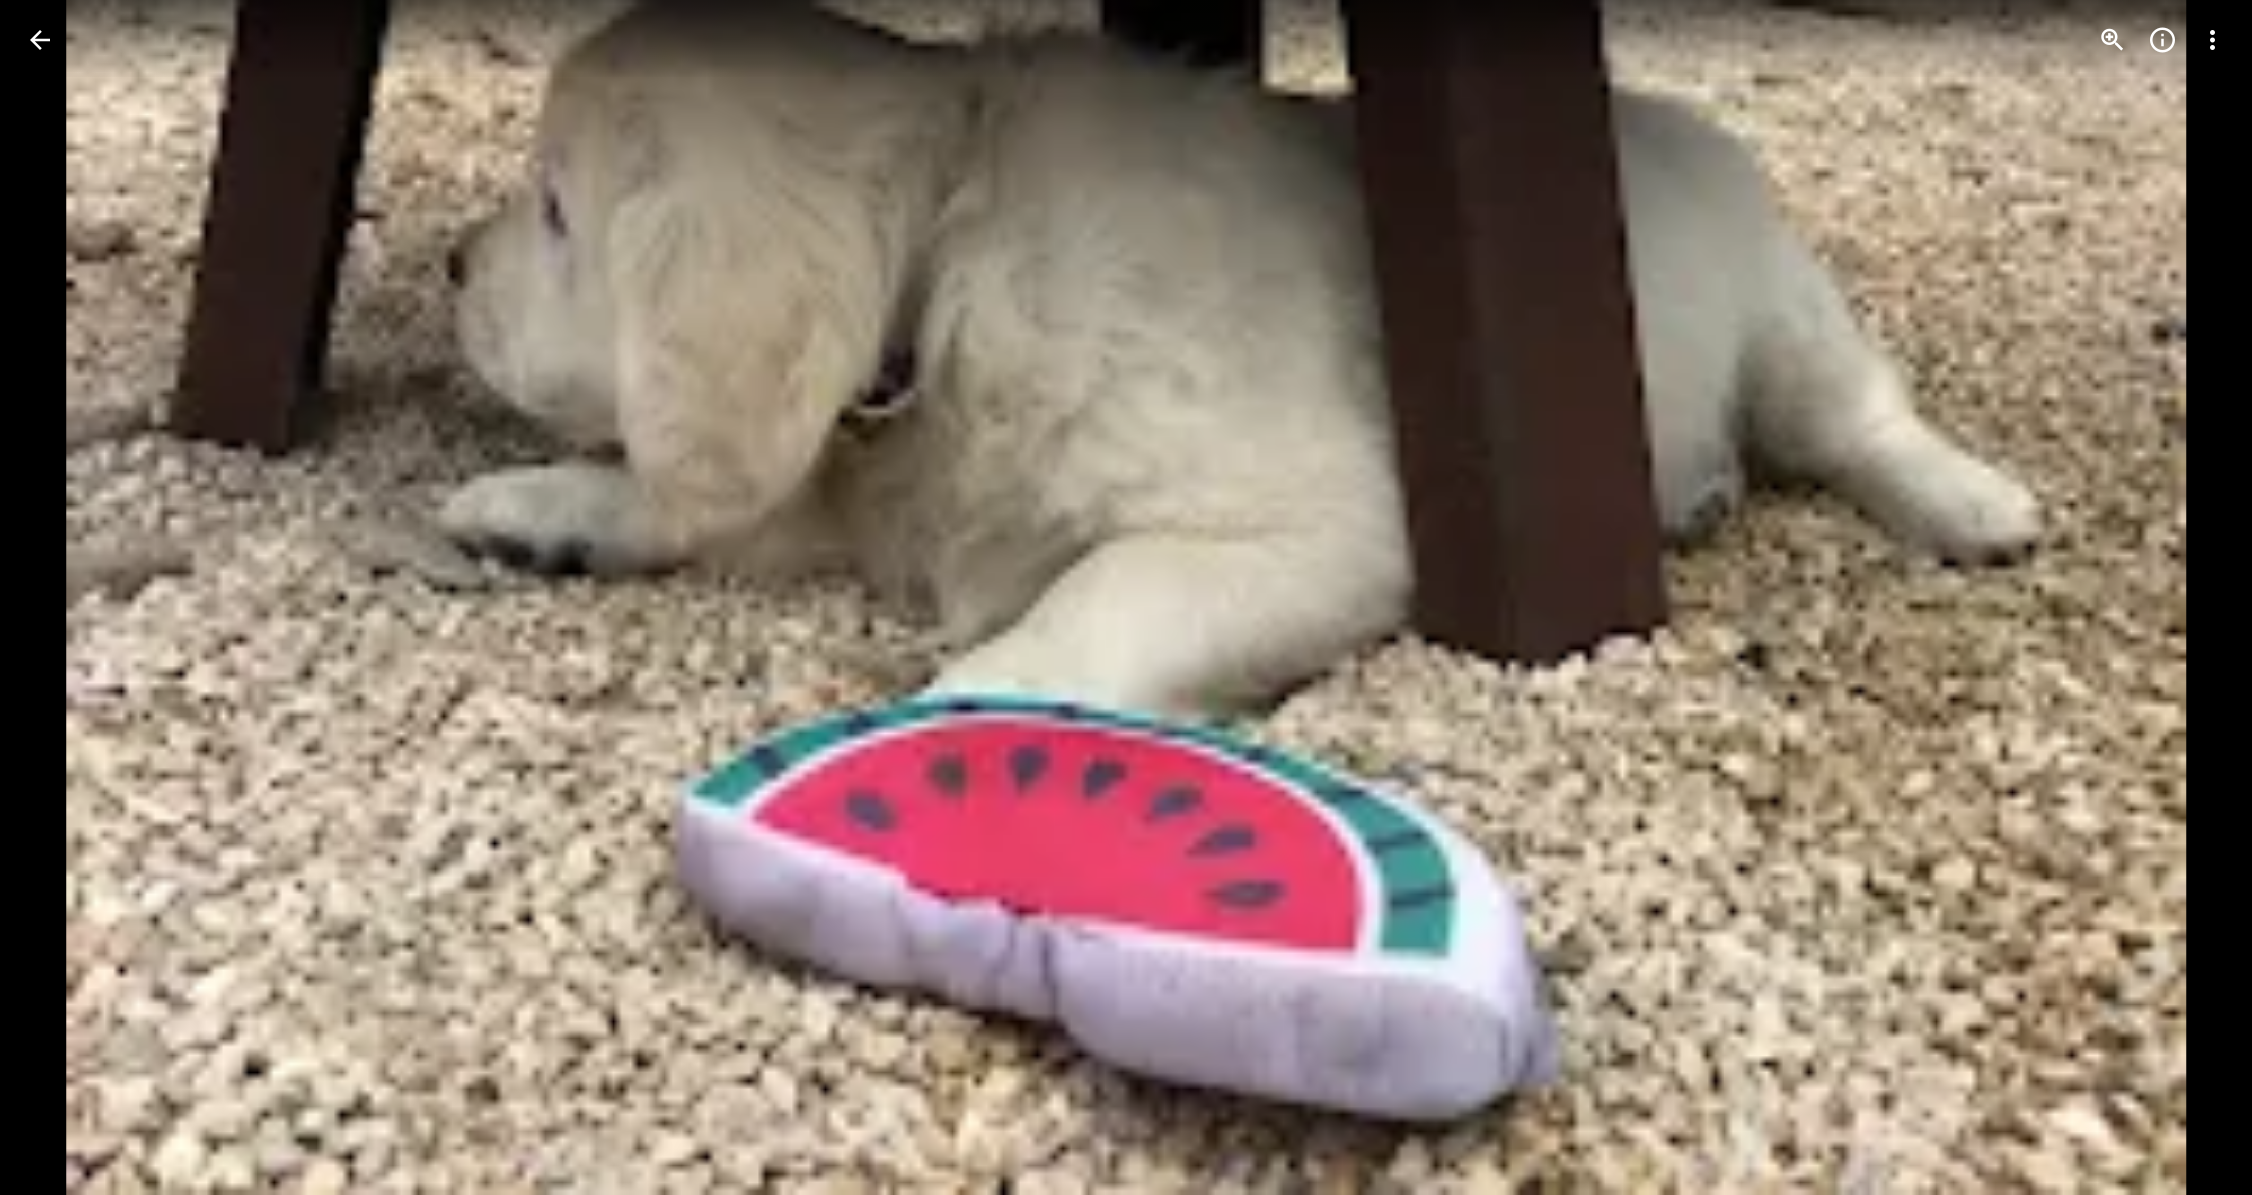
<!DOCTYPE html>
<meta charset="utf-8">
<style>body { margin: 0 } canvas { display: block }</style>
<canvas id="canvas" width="2252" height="1195"></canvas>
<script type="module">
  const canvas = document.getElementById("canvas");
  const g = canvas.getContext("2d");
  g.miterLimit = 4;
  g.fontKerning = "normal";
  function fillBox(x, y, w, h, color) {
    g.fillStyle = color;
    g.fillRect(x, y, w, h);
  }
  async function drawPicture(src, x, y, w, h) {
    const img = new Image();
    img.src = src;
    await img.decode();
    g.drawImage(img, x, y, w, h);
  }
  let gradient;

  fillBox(0, 0, 2252, 1195, "#000000");
  await drawPicture("pic5.png", 66, 0, 2121, 1195);
  gradient = g.createLinearGradient(1126, 0, 1126, 80);
  gradient.addColorStop(0, "rgba(0, 0, 0, 0.6)");
  gradient.addColorStop(1, "rgba(0, 0, 0, 0)");
  g.fillStyle = gradient;
  g.fillRect(66, 0, 2121, 77);
  await drawPicture("pic1.png", 30, 30, 20, 20);
  await drawPicture("pic2.png", 2101, 28, 22, 23);
  await drawPicture("pic3.png", 2150, 27, 25, 26);
  await drawPicture("pic4.png", 2210, 30, 5, 20);
</script>
